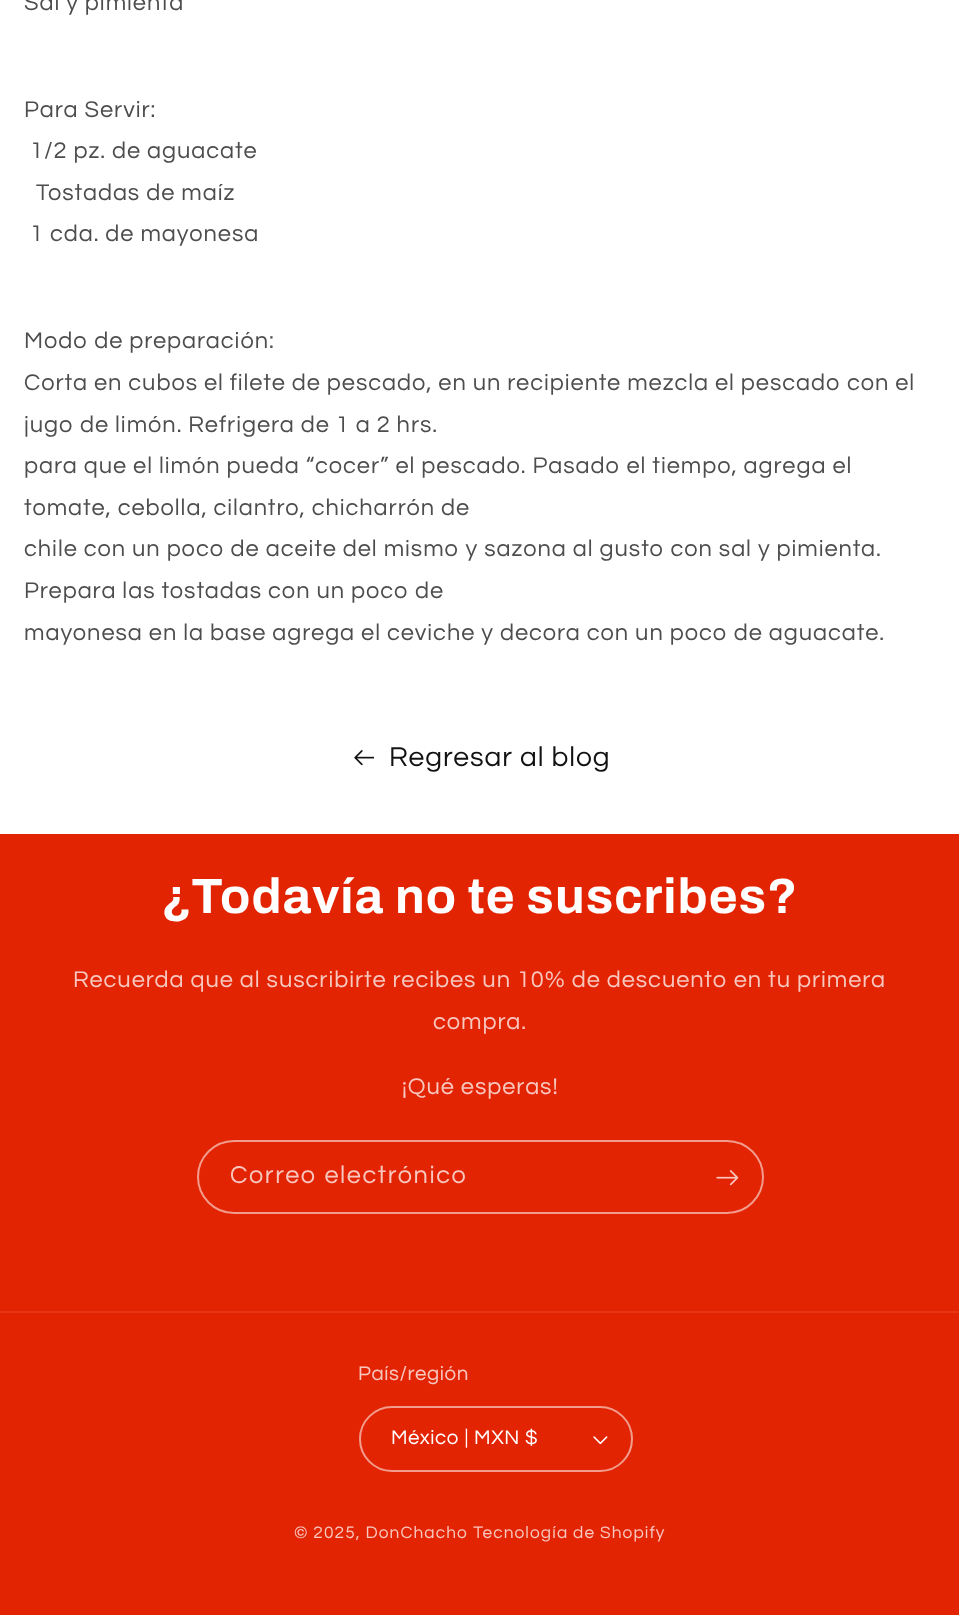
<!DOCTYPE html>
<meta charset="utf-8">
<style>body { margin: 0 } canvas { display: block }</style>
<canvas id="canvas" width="959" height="1615"></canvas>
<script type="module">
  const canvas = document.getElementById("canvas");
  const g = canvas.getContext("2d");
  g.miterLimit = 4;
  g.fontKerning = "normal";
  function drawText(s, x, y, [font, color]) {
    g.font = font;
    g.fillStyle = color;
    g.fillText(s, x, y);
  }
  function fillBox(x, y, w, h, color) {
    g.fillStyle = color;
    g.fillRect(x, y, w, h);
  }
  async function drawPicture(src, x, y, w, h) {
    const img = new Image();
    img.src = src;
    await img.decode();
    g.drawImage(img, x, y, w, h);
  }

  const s1 = ["23.6px Questrial", "#4D4D4D"];
  const s2 = ["28.25px Questrial", "#121212"];
  const s3 = ["bold 49.5px Archivo", "#FFFFFF"];
  const s4 = ["23.6px Questrial", "#F8C8C0"];
  const s5 = ["25.25px Questrial", "#F8C8C0"];
  const s6 = ["20.5px Questrial", "#F8C8C0"];
  const s7 = ["20.5px Questrial", "#FFFFFF"];
  const s8 = ["17.3px Questrial", "#F8C8C0"];

  fillBox(0, 0, 959, 1615, "#FFFFFF");
  g.letterSpacing = "0.95px";
  drawText("Sal y pimienta", 24, 10, s1);
  drawText("Para Servir:", 24, 117, s1);
  drawText(" 1/2 pz. de aguacate", 24, 158, s1);
  drawText("  Tostadas de maíz", 24, 200, s1);
  drawText(" 1 cda. de mayonesa", 24, 241, s1);
  drawText("Modo de preparación:", 24, 348, s1);
  drawText("Corta en cubos el filete de pescado, en un recipiente mezcla el pescado con el", 24, 390, s1);
  drawText("jugo de limón. Refrigera de 1 a 2 hrs.", 24, 432, s1);
  drawText("para que el limón pueda “cocer” el pescado. Pasado el tiempo, agrega el", 24, 473, s1);
  drawText("tomate, cebolla, cilantro, chicharrón de", 24, 515, s1);
  drawText("chile con un poco de aceite del mismo y sazona al gusto con sal y pimienta.", 24, 556, s1);
  drawText("Prepara las tostadas con un poco de", 24, 598, s1);
  drawText("mayonesa en la base agrega el ceviche y decora con un poco de aguacate.", 24, 640, s1);
  await drawPicture("pic1.png", 354, 750, 20, 16);
  drawText("Regresar al blog", 389, 766, s2);
  fillBox(0, 834, 959, 781, "#E32402");
  g.letterSpacing = "1px";
  drawText("¿Todavía no te suscribes?", 161, 913, s3);
  g.letterSpacing = "0.95px";
  drawText("Recuerda que al suscribirte recibes un 10% de descuento en tu primera", 73, 987, s4);
  drawText("compra.", 433, 1029, s4);
  drawText("¡Qué esperas!", 402, 1094, s4);
  g.beginPath();
  g.roundRect(198, 1141, 565, 72, 36);
  g.strokeStyle = "#F29C8D";
  g.lineWidth = 2;
  g.stroke();
  g.letterSpacing = "1.6px";
  drawText("Correo electrónico", 230, 1183, s5);
  await drawPicture("pic2.png", 716, 1170, 23, 16);
  fillBox(0, 1311, 959, 2, "#E53616");
  g.letterSpacing = "0.6px";
  drawText("País/región", 358, 1380, s6);
  await drawPicture("pic3.png", 593, 1436, 15, 9);
  g.beginPath();
  g.roundRect(360, 1407, 272, 64, 32);
  g.stroke();
  drawText("México | MXN $", 391, 1444, s7);
  g.letterSpacing = "1.1px";
  drawText("© 2025, DonChacho Tecnología de Shopify", 294, 1538, s8);
</script>
